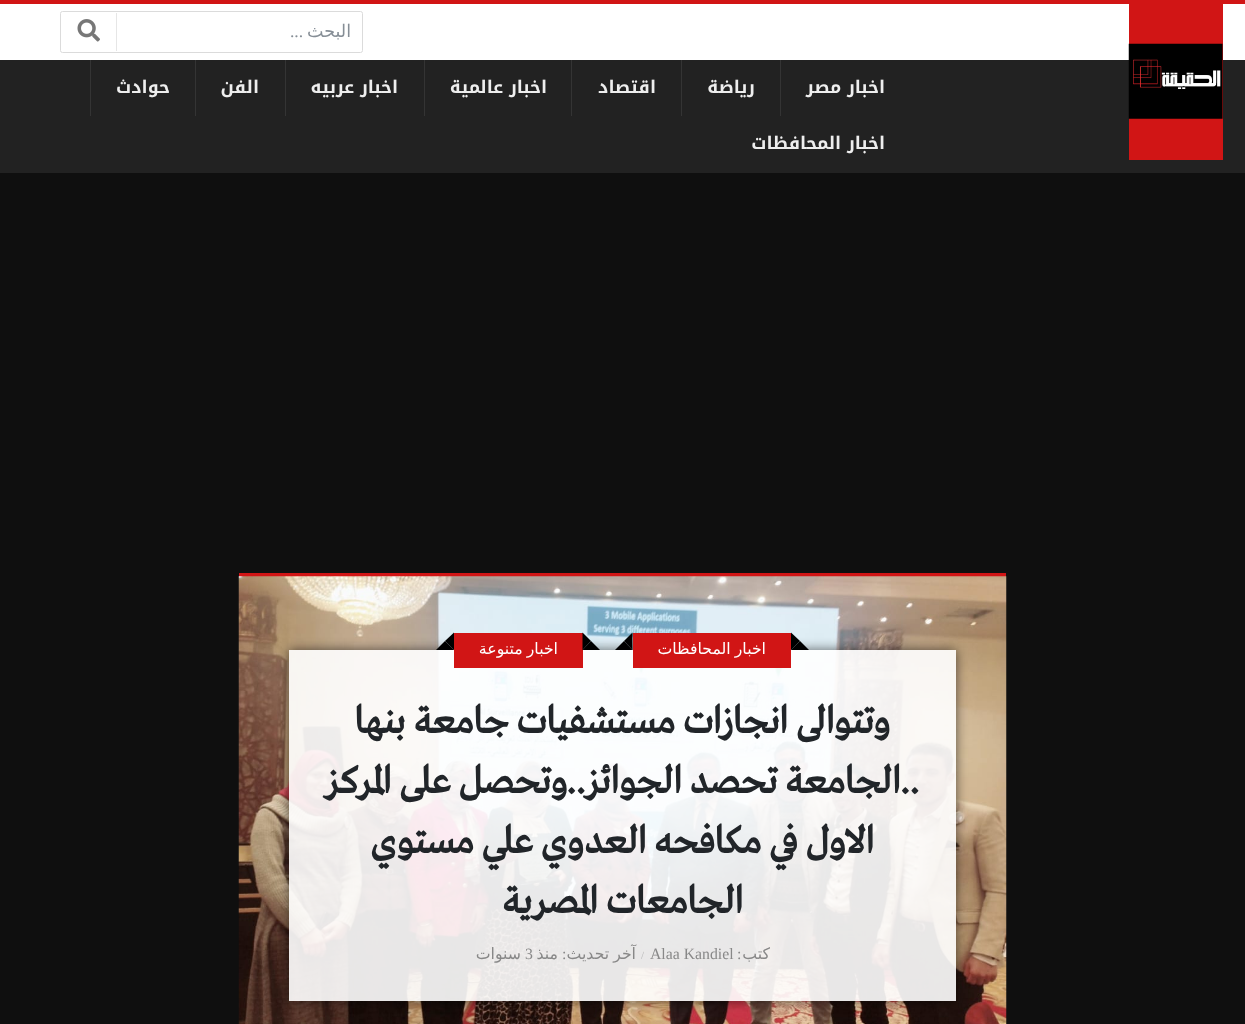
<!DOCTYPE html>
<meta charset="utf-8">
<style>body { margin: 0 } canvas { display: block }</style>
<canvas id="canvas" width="1245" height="1024"></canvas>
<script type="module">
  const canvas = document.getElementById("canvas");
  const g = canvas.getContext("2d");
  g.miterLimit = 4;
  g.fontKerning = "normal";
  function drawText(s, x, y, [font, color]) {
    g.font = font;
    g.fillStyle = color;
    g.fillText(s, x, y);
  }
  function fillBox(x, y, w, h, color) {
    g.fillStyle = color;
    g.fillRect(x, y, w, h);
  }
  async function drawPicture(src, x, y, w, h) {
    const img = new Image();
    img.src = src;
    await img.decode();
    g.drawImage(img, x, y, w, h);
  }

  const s1 = ["17.5px DejaVu Sans", "#868E96"];
  const s2 = ["17.5px Liberation Serif", "#868E96"];
  const s3 = ["bold 17.5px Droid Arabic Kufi", "#EEEEEE"];
  const s4 = ["15.75px DejaVu Sans", "#FFFFFF"];
  const s5 = ["15.75px DejaVu Sans", "#888888"];
  const s6 = ["15.75px Liberation Serif", "#888888"];
  const s7 = ["11px Liberation Serif", "#B9B8B8"];
  const s8 = ["bold 40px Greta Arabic", "#212529"];

  fillBox(0, 0, 1245, 1024, "#0F0F0F");
  fillBox(0, 60, 1245, 113, "#222222");
  fillBox(0, 0, 1245, 4, "#D11515");
  fillBox(0, 4, 1245, 56, "#FFFFFF");
  g.beginPath();
  g.roundRect(60.5, 11.5, 302, 41, 2);
  g.strokeStyle = "#DBDBDB";
  g.stroke();
  g.direction = "rtl";
  drawText("البحث", 351, 37, s1);
  drawText("...", 303, 37, s2);
  fillBox(116, 13, 1, 38, "#E6E6E6");
  await drawPicture("pic1.png", 77, 19, 23, 23);
  fillBox(1129, 4, 94, 156, "#D11515");
  await drawPicture("pic2.png", 1128, 43, 95, 76);
  fillBox(780, 60, 1, 56, "#343434");
  drawText("اخبار مصر", 885, 93, s3);
  fillBox(681, 60, 1, 56, "#343434");
  drawText("رياضة", 755, 93, s3);
  fillBox(571, 60, 1, 56, "#343434");
  drawText("اقتصاد", 656, 93, s3);
  fillBox(424, 60, 1, 56, "#343434");
  drawText("اخبار عالمية", 547, 93, s3);
  fillBox(285, 60, 1, 56, "#343434");
  drawText("اخبار عربيه", 398, 93, s3);
  fillBox(195, 60, 1, 56, "#343434");
  drawText("الفن", 259, 93, s3);
  fillBox(90, 60, 1, 56, "#343434");
  drawText("حوادث", 170, 93, s3);
  drawText("اخبار المحافظات", 885, 149, s3);
  fillBox(239, 573, 767, 4, "#D11515");
  await drawPicture("pic3.png", 238, 576, 769, 448);
  g.save();
  g.beginPath();
  g.moveTo(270, 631);
  g.lineTo(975, 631);
  g.lineTo(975, 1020);
  g.lineTo(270, 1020);
  g.closePath();
  g.moveTo(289, 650);
  g.lineTo(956, 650);
  g.lineTo(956, 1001);
  g.lineTo(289, 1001);
  g.closePath();
  g.clip("evenodd");
  g.fillStyle = "rgba(0, 0, 0, 0.6)";
  g.filter = "blur(6px)";
  g.beginPath();
  g.rect(289, 650, 667, 351);
  g.fill();
  g.filter = "none";
  g.restore();
  fillBox(289, 650, 667, 351, "rgba(255, 255, 255, 0.9)");
  fillBox(633, 633, 158, 35, "#D11515");
  g.fillStyle = "#000000";
  g.beginPath();
  g.moveTo(809, 650);
  g.lineTo(791, 650);
  g.lineTo(800, 641);
  g.closePath();
  g.fill();
  g.beginPath();
  g.moveTo(791, 650);
  g.lineTo(791, 632.5);
  g.lineTo(800, 641);
  g.closePath();
  g.fill();
  g.wordSpacing = "-1px";
  drawText("اخبار المحافظات", 766, 654, s4);
  g.fillStyle = "#000000";
  g.beginPath();
  g.moveTo(632.5, 632.5);
  g.lineTo(632.5, 650);
  g.lineTo(624, 641);
  g.closePath();
  g.fill();
  g.beginPath();
  g.moveTo(632.5, 650);
  g.lineTo(615, 650);
  g.lineTo(624, 641);
  g.closePath();
  g.fill();
  fillBox(454, 633, 129, 35, "#D11515");
  g.fillStyle = "#000000";
  g.beginPath();
  g.moveTo(600, 650);
  g.lineTo(582.5, 650);
  g.lineTo(591, 641);
  g.closePath();
  g.fill();
  g.beginPath();
  g.moveTo(582.5, 650);
  g.lineTo(582.5, 632.5);
  g.lineTo(591, 641);
  g.closePath();
  g.fill();
  drawText("اخبار متنوعة", 558, 654, s4);
  g.fillStyle = "#000000";
  g.beginPath();
  g.moveTo(454, 632.5);
  g.lineTo(454, 650);
  g.lineTo(445, 641);
  g.closePath();
  g.fill();
  g.beginPath();
  g.moveTo(454, 650);
  g.lineTo(436, 650);
  g.lineTo(445, 641);
  g.closePath();
  g.fill();
  g.wordSpacing = "0px";
  drawText("كتب", 770, 959, s5);
  g.direction = "ltr";
  drawText(":", 737, 959, s6);
  drawText("Alaa Kandiel", 650, 959, s6);
  drawText("/", 641, 959, s7);
  g.wordSpacing = "-1px";
  g.direction = "rtl";
  drawText("آخر تحديث", 636, 959, s5);
  g.wordSpacing = "0px";
  g.direction = "ltr";
  drawText(":", 562, 959, s6);
  g.direction = "rtl";
  drawText("منذ", 558, 959, s5);
  g.direction = "ltr";
  drawText("3", 525, 959, s6);
  g.direction = "rtl";
  drawText("سنوات", 521, 959, s5);
  drawText("وتتوالى انجازات مستشفيات جامعة بنها", 890, 733, s8);
  drawText("..الجامعة تحصد الجوائز..وتحصل على المركز", 919, 793, s8);
  drawText("الاول في مكافحه العدوي علي مستوي", 874, 853, s8);
  drawText("الجامعات المصرية", 743, 913, s8);
</script>
